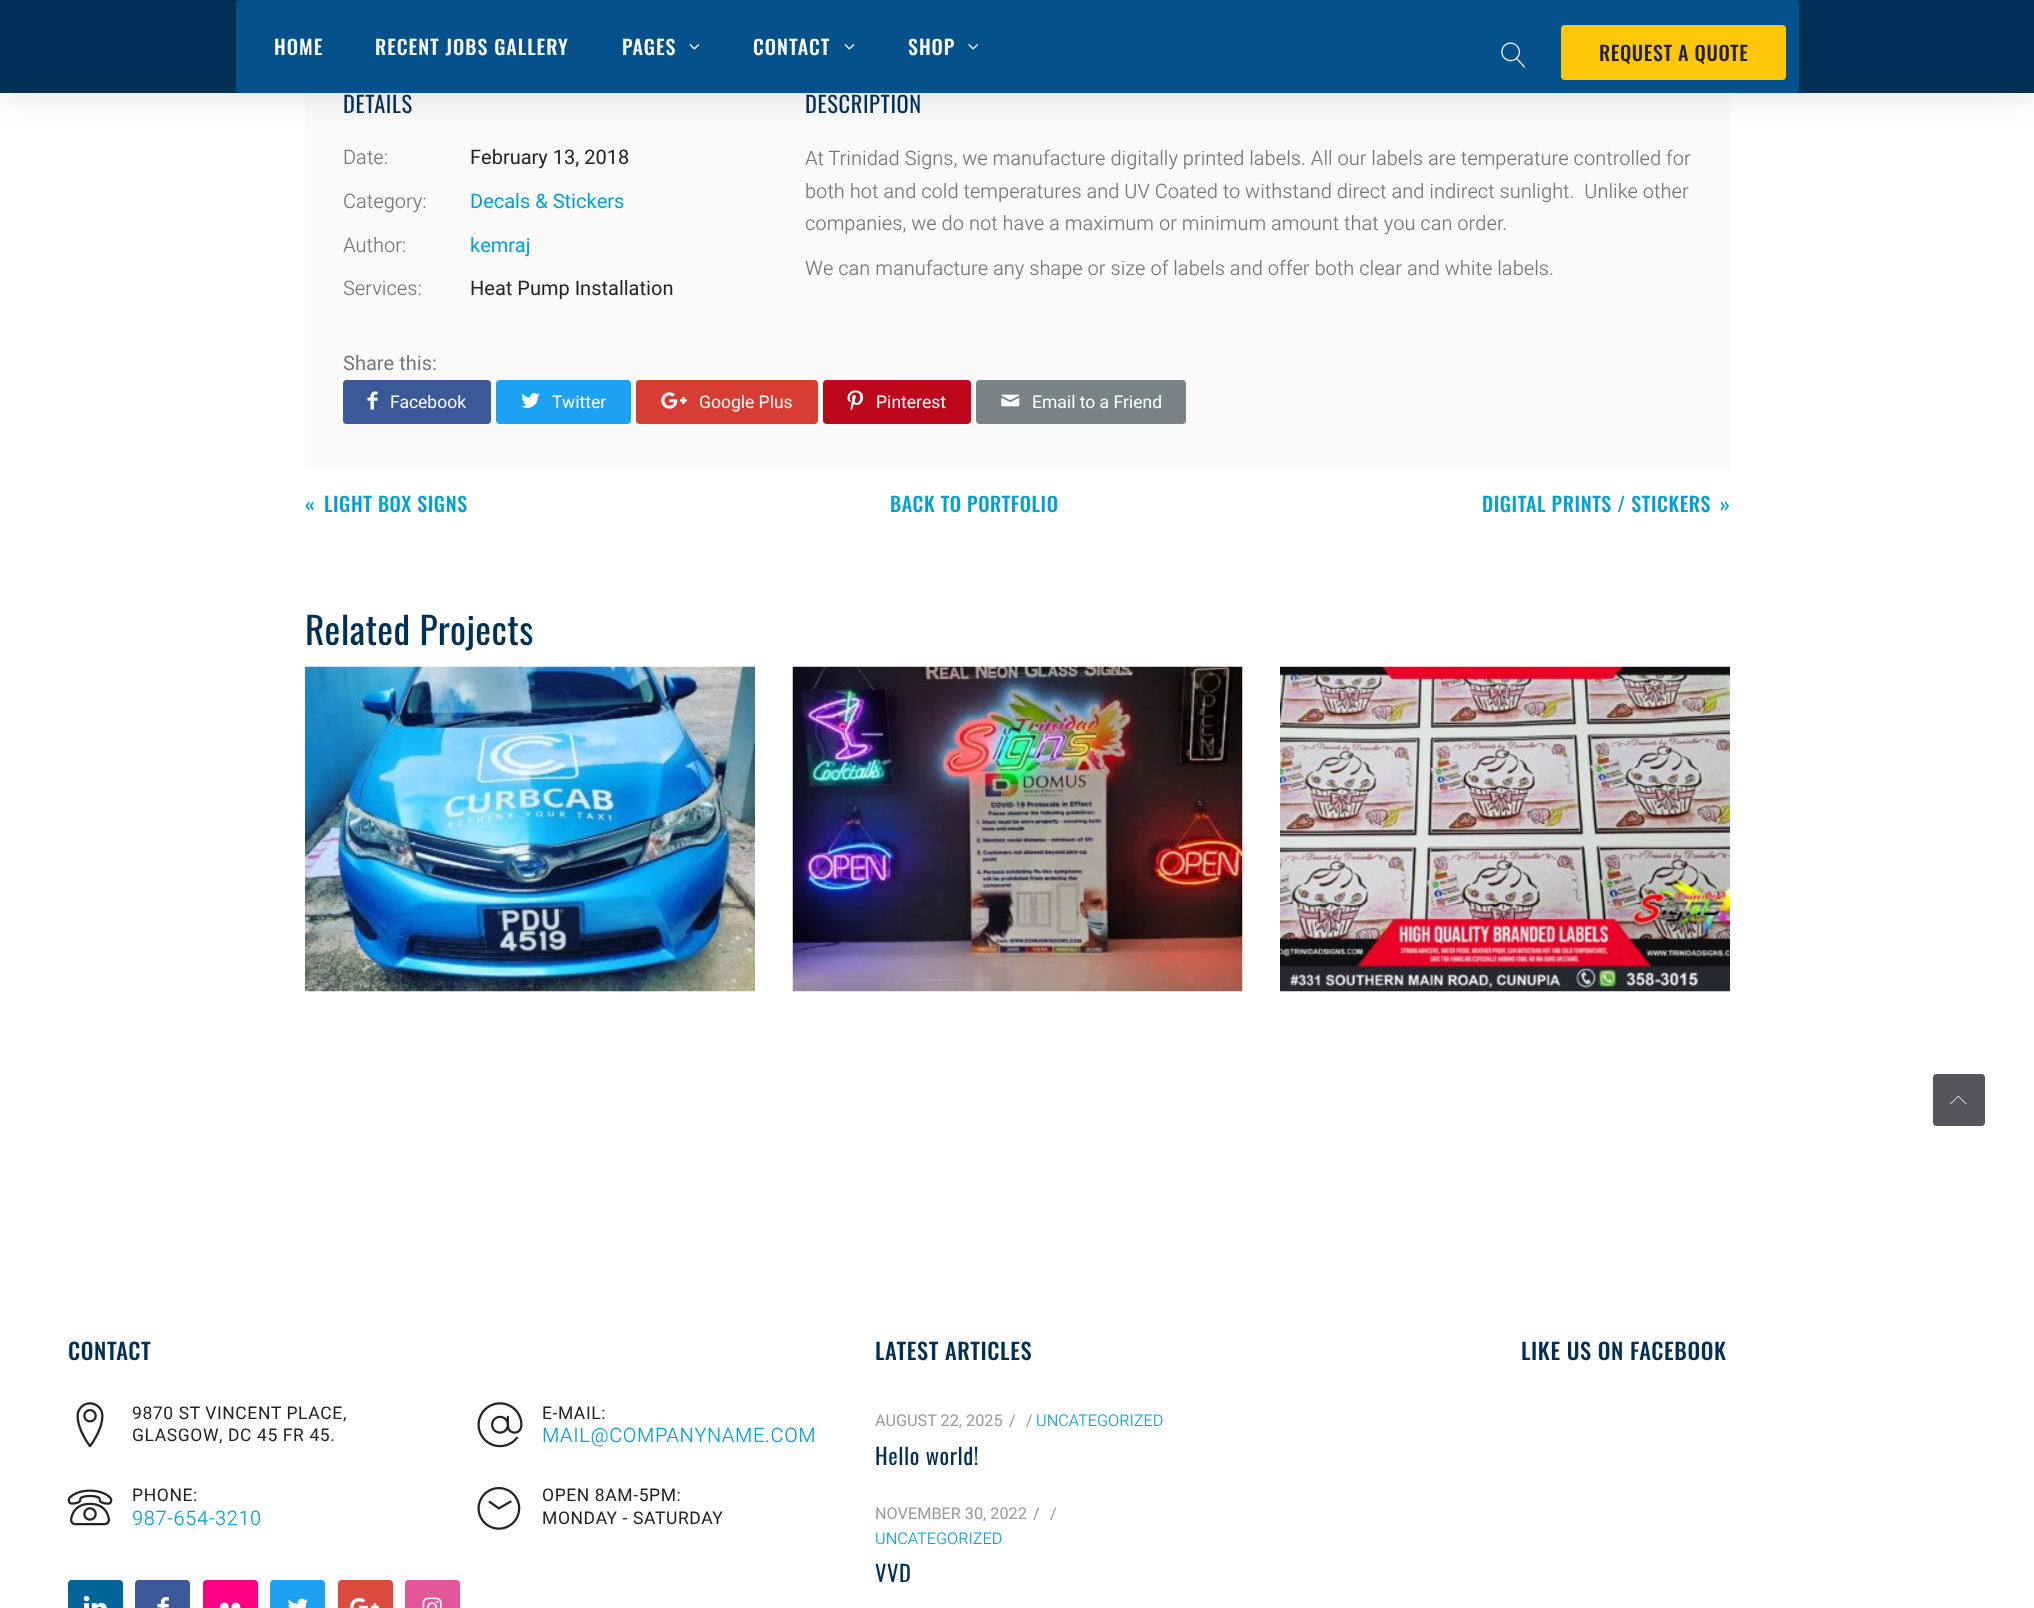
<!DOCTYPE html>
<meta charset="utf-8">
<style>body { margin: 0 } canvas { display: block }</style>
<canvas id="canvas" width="2034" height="1608"></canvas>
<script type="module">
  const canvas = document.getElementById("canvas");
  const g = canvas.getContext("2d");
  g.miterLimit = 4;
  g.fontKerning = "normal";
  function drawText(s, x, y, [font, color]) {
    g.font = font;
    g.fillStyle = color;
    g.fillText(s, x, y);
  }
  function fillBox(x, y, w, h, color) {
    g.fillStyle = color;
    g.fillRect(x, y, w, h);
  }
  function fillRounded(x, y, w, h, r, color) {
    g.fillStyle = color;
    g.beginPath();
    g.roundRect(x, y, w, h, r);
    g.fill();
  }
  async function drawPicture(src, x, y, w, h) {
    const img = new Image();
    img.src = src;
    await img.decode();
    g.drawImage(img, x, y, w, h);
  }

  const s1 = ["500 20px Oswald", "#FFFFFF"];
  const s2 = ["500 20px Oswald", "#222222"];
  const s3 = ["22.5px Oswald", "#003056"];
  const s4 = ["300 20px Heebo", "#777777"];
  const s5 = ["20px Heebo", "#222222"];
  const s6 = ["20px Heebo", "#00A1D9"];
  const s7 = ["20px Heebo", "#777777"];
  const s8 = ["17.5px Heebo", "#FFFFFF"];
  const s9 = ["500 20px Oswald", "#00A1D9"];
  const s10 = ["37.5px Oswald", "#003056"];
  const s11 = ["500 22.5px Oswald", "#003056"];
  const s12 = ["17.5px Heebo", "#222222"];
  const s13 = ["300 20px Heebo", "#00A1D9"];
  const s14 = ["16.25px Heebo", "#999999"];
  const s15 = ["300 16.25px Heebo", "#00A1D9"];

  fillBox(0, 0, 2034, 1608, "#FFFFFF");
  fillBox(305, 93, 1425, 375, "#FAFAFA");
  g.fillStyle = "rgba(78, 82, 99, 0.3)";
  g.filter = "blur(19px)";
  g.beginPath();
  g.rect(0, -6, 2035, 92);
  g.fill();
  g.filter = "none";
  fillBox(0, 0, 2034, 93, "#003056");
  fillRounded(236, 0, 1563, 93, 4, "#04518C");
  g.letterSpacing = "1px";
  drawText("HOME", 274, 55, s1);
  drawText("RECENT JOBS GALLERY", 375, 55, s1);
  drawText("PAGES", 622, 55, s1);
  await drawPicture("pic1.png", 689, 44, 11, 6);
  drawText("CONTACT", 753, 55, s1);
  await drawPicture("pic1.png", 844, 44, 11, 6);
  drawText("SHOP", 908, 55, s1);
  await drawPicture("pic2.png", 968, 44, 10, 6);
  await drawPicture("pic3.png", 1501, 42, 24, 26);
  fillRounded(1561, 25, 225, 55, 4, "#FFC707");
  g.letterSpacing = "0.6px";
  drawText("REQUEST A QUOTE", 1599, 61, s2);
  drawText("DETAILS", 343, 113, s3);
  g.letterSpacing = "0px";
  drawText("Date:", 343, 164, s4);
  drawText("February 13, 2018", 470, 164, s5);
  drawText("Category:", 343, 208, s4);
  drawText("Decals & Stickers", 470, 208, s6);
  drawText("Author:", 343, 252, s4);
  drawText("kemraj", 470, 252, s6);
  drawText("Services:", 343, 295, s4);
  drawText("Heat Pump Installation", 470, 295, s5);
  g.letterSpacing = "0.6px";
  drawText("DESCRIPTION", 805, 113, s3);
  g.letterSpacing = "0px";
  drawText("At Trinidad Signs, we manufacture digitally printed labels. All our labels are temperature controlled for", 805, 165, s4);
  drawText("both hot and cold temperatures and UV Coated to withstand direct and indirect sunlight.  Unlike other", 805, 198, s4);
  drawText("companies, we do not have a maximum or minimum amount that you can order.", 805, 230, s4);
  drawText("We can manufacture any shape or size of labels and offer both clear and white labels.", 805, 275, s4);
  drawText("Share this:", 343, 370, s7);
  fillRounded(343, 380, 148, 44, 4, "#3B5998");
  await drawPicture("pic4.png", 367, 391, 11, 19);
  drawText("Facebook", 390, 408, s8);
  fillRounded(496, 380, 135, 44, 4, "#1DA1F2");
  await drawPicture("pic5.png", 521, 393, 19, 15);
  drawText("Twitter", 552, 408, s8);
  fillRounded(636, 380, 182, 44, 4, "#D73D32");
  await drawPicture("pic6.png", 661, 392, 26, 17);
  drawText("Google Plus", 699, 408, s8);
  fillRounded(823, 380, 148, 44, 4, "#BD081C");
  await drawPicture("pic7.png", 847, 390, 17, 21);
  drawText("Pinterest", 876, 408, s8);
  fillRounded(976, 380, 210, 44, 4, "#7B8285");
  await drawPicture("pic8.png", 1001, 394, 19, 13);
  drawText("Email to a Friend", 1032, 408, s8);
  g.letterSpacing = "0.6px";
  drawText("«", 305, 512, s9);
  drawText("LIGHT BOX SIGNS", 324, 512, s9);
  drawText("BACK TO PORTFOLIO", 890, 512, s9);
  drawText("DIGITAL PRINTS / STICKERS", 1482, 512, s9);
  drawText("»", 1720, 512, s9);
  g.letterSpacing = "0.4px";
  drawText("Related Projects", 305, 645, s10);
  await drawPicture("pic9.png", 305, 666, 450, 326);
  await drawPicture("pic10.png", 792, 666, 451, 326);
  await drawPicture("pic11.png", 1280, 666, 450, 326);
  g.letterSpacing = "0.6px";
  drawText("CONTACT", 68, 1360, s11);
  await drawPicture("pic12.png", 76, 1402, 28, 46);
  drawText("9870 ST VINCENT PLACE,", 132, 1419, s12);
  drawText("GLASGOW, DC 45 FR 45.", 132, 1441, s12);
  await drawPicture("pic13.png", 477, 1402, 46, 46);
  drawText("E-MAIL:", 542, 1419, s12);
  drawText("MAIL@COMPANYNAME.COM", 542, 1442, s13);
  await drawPicture("pic14.png", 67, 1489, 46, 37);
  drawText("PHONE:", 132, 1501, s12);
  drawText("987-654-3210", 132, 1525, s13);
  await drawPicture("pic15.png", 477, 1487, 44, 43);
  drawText("OPEN 8AM-5PM:", 542, 1501, s12);
  drawText("MONDAY - SATURDAY", 542, 1524, s12);
  fillRounded(68, 1580, 55, 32, 4, "#006699");
  await drawPicture("pic16.png", 83, 1596, 24, 12);
  fillRounded(135, 1580, 55, 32, 4, "#3B5998");
  await drawPicture("pic17.png", 157, 1597, 12, 11);
  fillRounded(203, 1580, 55, 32, 4, "#FF0084");
  await drawPicture("pic18.png", 220, 1602, 21, 6);
  fillRounded(270, 1580, 55, 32, 4, "#1DA1F2");
  await drawPicture("pic19.png", 288, 1598, 20, 10);
  fillRounded(338, 1580, 55, 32, 4, "#DC4A3D");
  await drawPicture("pic20.png", 350, 1597, 29, 11);
  fillRounded(405, 1580, 55, 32, 4, "#E3569A");
  await drawPicture("pic21.png", 422, 1597, 20, 11);
  drawText("LATEST ARTICLES", 875, 1360, s11);
  g.letterSpacing = "0px";
  drawText("AUGUST 22, 2025", 875, 1426, s14);
  drawText("/", 1009, 1426, s14);
  drawText("/", 1026, 1426, s14);
  drawText("UNCATEGORIZED", 1036, 1426, s15);
  g.letterSpacing = "0.6px";
  drawText("Hello world!", 875, 1465, s3);
  g.letterSpacing = "0px";
  drawText("NOVEMBER 30, 2022", 875, 1519, s14);
  drawText("/", 1033, 1519, s14);
  drawText("/", 1050, 1519, s14);
  drawText("UNCATEGORIZED", 875, 1544, s15);
  g.letterSpacing = "0.6px";
  drawText("VVD", 875, 1582, s3);
  drawText("LIKE US ON FACEBOOK", 1521, 1360, s11);
  fillRounded(1933, 1074, 52, 52, 4, "#55565B");
  await drawPicture("pic22.png", 1950, 1095, 17, 10);
</script>
